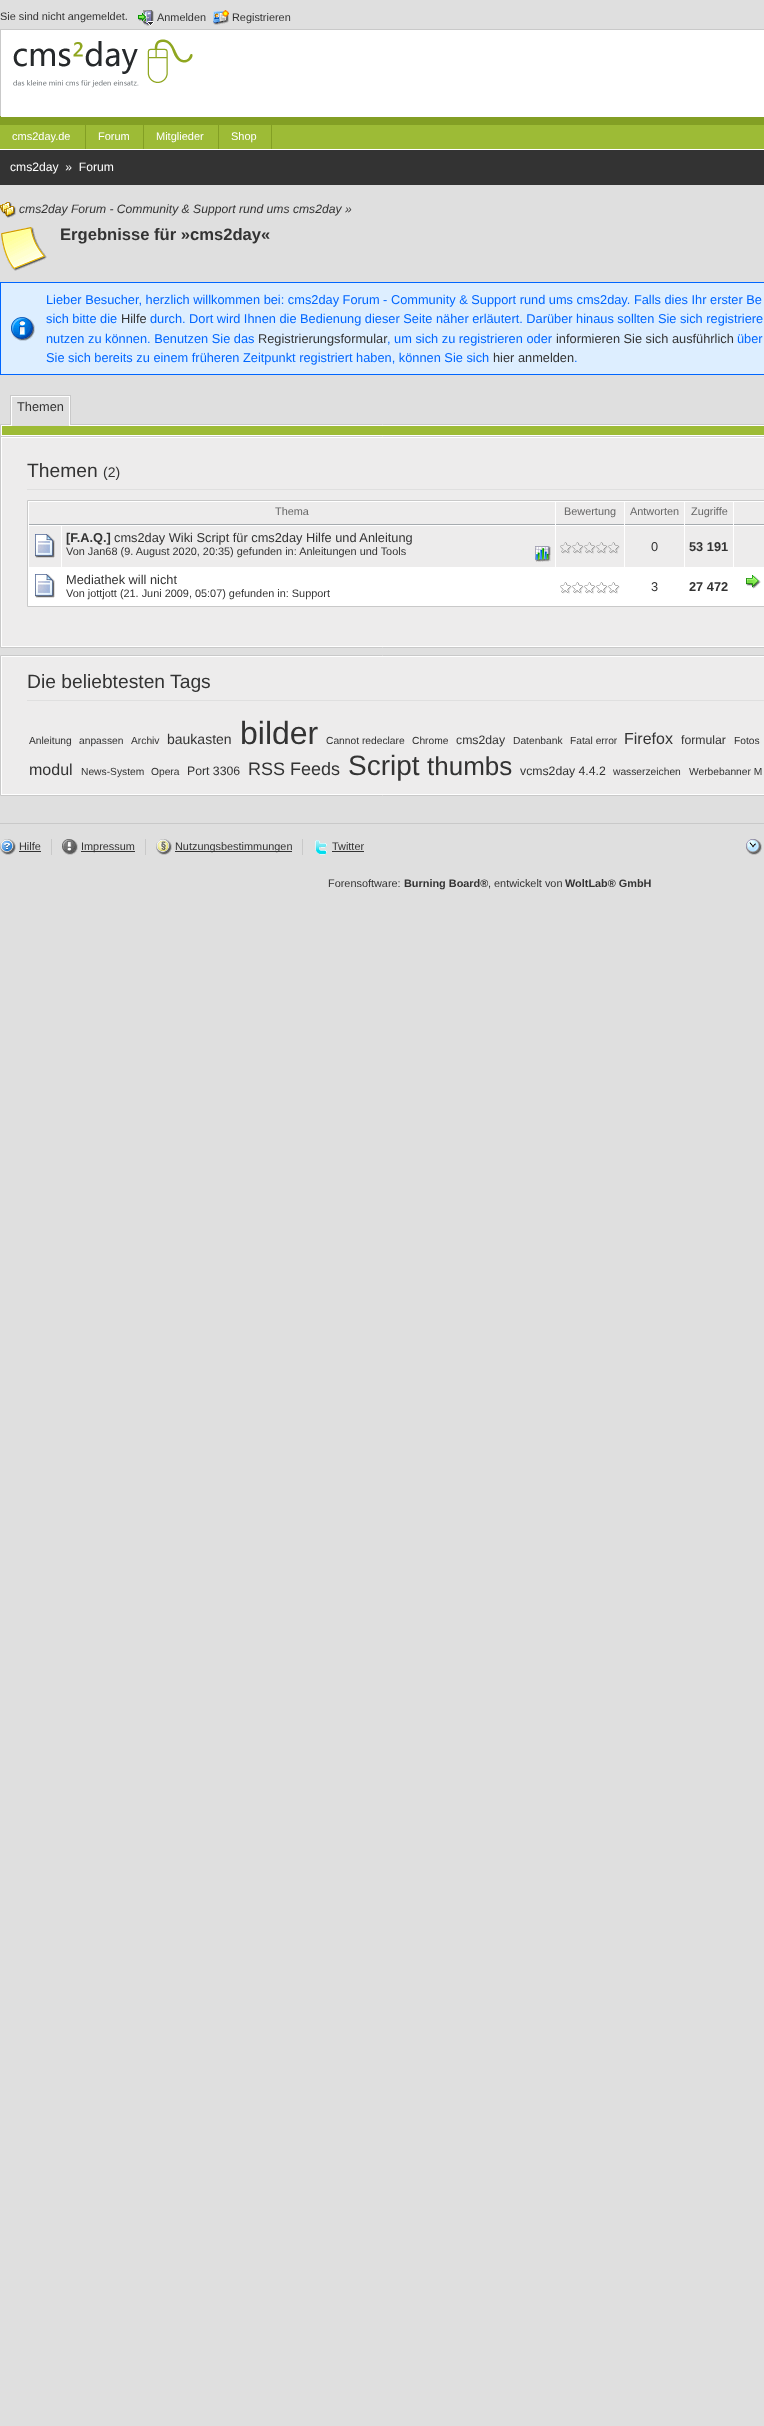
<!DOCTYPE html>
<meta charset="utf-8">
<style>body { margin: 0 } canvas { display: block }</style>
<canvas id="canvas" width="764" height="2426"></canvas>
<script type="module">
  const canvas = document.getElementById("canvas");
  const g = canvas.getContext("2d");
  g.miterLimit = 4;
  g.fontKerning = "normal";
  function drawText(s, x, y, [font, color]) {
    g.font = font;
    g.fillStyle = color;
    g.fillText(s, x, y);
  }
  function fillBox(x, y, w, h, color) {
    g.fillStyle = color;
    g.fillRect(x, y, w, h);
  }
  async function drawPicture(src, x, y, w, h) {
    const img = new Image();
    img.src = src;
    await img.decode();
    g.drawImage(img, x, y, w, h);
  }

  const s1 = ["10.9px Liberation Sans", "#333333"];
  const s2 = ["11px Liberation Sans", "#FFFFFF"];
  const s3 = ["12.15px Liberation Sans", "#FFFFFF"];
  const s4 = ["italic 12.15px Liberation Sans", "#333333"];
  const s5 = ["bold 16.6px Liberation Sans", "#333333"];
  const s6 = ["12.8px Liberation Sans", "#0066FF"];
  const s7 = ["12.8px Liberation Sans", "#333333"];
  const s8 = ["19.25px Liberation Sans", "#333333"];
  const s9 = ["14px Liberation Sans", "#333333"];
  const s10 = ["10.9px Liberation Sans", "#666666"];
  const s11 = ["bold 12.8px Liberation Sans", "#333333"];
  const s12 = ["10.25px Liberation Sans", "#333333"];
  const s13 = ["32px Liberation Sans", "#333333"];
  const s14 = ["12.25px Liberation Sans", "#333333"];
  const s15 = ["16px Liberation Sans", "#333333"];
  const s16 = ["18px Liberation Sans", "#333333"];
  const s17 = ["28px Liberation Sans", "#333333"];
  const s18 = ["26px Liberation Sans", "#333333"];
  const s19 = ["bold 10.9px Liberation Sans", "#333333"];

  fillBox(0, 0, 764, 2426, "#DFDFDF");
  drawText("Sie sind nicht angemeldet.", 0, 20, s1);
  await drawPicture("pic1.png", 138, 10, 16, 16);
  drawText("Anmelden", 157, 21, s1);
  await drawPicture("pic2.png", 213, 10, 16, 15);
  drawText("Registrieren", 232, 21, s1);
  fillBox(2, 31, 762, 85, "#FFFFFF");
  fillBox(0, 29, 764, 1, "#C9C9C9");
  fillBox(0, 29, 1, 88, "#C9C9C9");
  fillBox(0, 116, 764, 9, "#839F24");
  g.strokeStyle = "#FFFFFF";
  g.strokeRect(1.5, 30.5, 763, 86);
  await drawPicture("pic3.png", 13, 39, 180, 49);
  fillBox(0, 125, 764, 24, "#9DBB36");
  fillBox(0, 149, 764, 1, "#FFFFFF");
  fillBox(85, 125, 1, 24, "#839F24");
  drawText("cms2day.de", 12, 140, s2);
  fillBox(143, 125, 1, 24, "#839F24");
  drawText("Forum", 98, 140, s2);
  fillBox(218, 125, 1, 24, "#839F24");
  drawText("Mitglieder", 156, 140, s2);
  fillBox(271, 125, 1, 24, "#839F24");
  drawText("Shop", 231, 140, s2);
  fillBox(0, 150, 764, 35, "#333333");
  drawText("cms2day  »  Forum", 10, 171, s3);
  await drawPicture("pic4.png", 0, 202, 16, 16);
  drawText("cms2day Forum - Community & Support rund ums cms2day »", 19, 213, s4);
  await drawPicture("pic5.png", 1, 227, 46, 44);
  drawText("Ergebnisse für »cms2day«", 60, 240, s5);
  fillBox(1, 283, 763, 91, "#DDEEFF");
  await drawPicture("pic6.png", 11, 317, 24, 24);
  g.strokeStyle = "#0066FF";
  g.strokeRect(0.5, 282.5, 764, 92);
  drawText("Lieber Besucher, herzlich willkommen bei: cms2day Forum - Community & Support rund ums cms2day. Falls dies Ihr erster Be", 46, 304, s6);
  drawText("sich bitte die", 46, 323, s6);
  drawText("Hilfe", 121, 323, s7);
  drawText("durch. Dort wird Ihnen die Bedienung dieser Seite näher erläutert. Darüber hinaus sollten Sie sich registriere", 150, 323, s6);
  drawText("nutzen zu können. Benutzen Sie das", 46, 343, s6);
  drawText("Registrierungsformular", 258, 343, s7);
  drawText(", um sich zu registrieren oder", 387, 343, s6);
  drawText("informieren Sie sich ausführlich", 556, 343, s7);
  drawText("über", 737, 343, s6);
  drawText("Sie sich bereits zu einem früheren Zeitpunkt registriert haben, können Sie sich", 46, 362, s6);
  drawText("hier anmelden", 493, 362, s7);
  drawText(".", 574, 362, s6);
  fillBox(10, 395, 61, 1, "#C9C9C9");
  fillBox(70, 395, 1, 31, "#C9C9C9");
  fillBox(10, 395, 1, 31, "#C9C9C9");
  g.fillStyle = "#FFFFFF";
  g.beginPath();
  g.rect(0.5, 436.5, 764, 211);
  g.fill();
  g.strokeStyle = "#C9C9C9";
  g.stroke();
  g.beginPath();
  g.rect(0.5, 424.5, 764, 12);
  g.fill();
  g.stroke();
  fillBox(12, 424, 57, 2, "#DFDFDF");
  fillBox(11, 396, 59, 1, "#FFFFFF");
  fillBox(69, 396, 1, 30, "#FFFFFF");
  fillBox(11, 396, 1, 30, "#FFFFFF");
  drawText("Themen", 17, 411, s7);
  fillBox(2, 426, 762, 9, "#9DBB36");
  fillBox(2, 438, 762, 208, "#EDECEC");
  fillBox(27, 489, 737, 1, "#DFDFDF");
  drawText("Themen", 27, 477, s8);
  drawText("(2)", 103, 477, s9);
  g.fillStyle = "#FFFFFF";
  g.beginPath();
  g.rect(27.5, 500.5, 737, 106);
  g.fill();
  g.stroke();
  fillBox(29, 502, 526, 22, "#EDECEC");
  fillBox(29, 524, 526, 1, "#A6ABAF");
  drawText("Thema", 275, 515, s10);
  fillBox(556, 502, 68, 22, "#EDECEC");
  fillBox(556, 524, 68, 1, "#A6ABAF");
  drawText("Bewertung", 564, 515, s10);
  fillBox(625, 502, 59, 22, "#EDECEC");
  fillBox(625, 524, 59, 1, "#A6ABAF");
  drawText("Antworten", 630, 515, s10);
  fillBox(685, 502, 48, 22, "#EDECEC");
  fillBox(685, 524, 48, 1, "#A6ABAF");
  drawText("Zugriffe", 691, 515, s10);
  fillBox(734, 502, 30, 22, "#EDECEC");
  fillBox(734, 524, 30, 1, "#A6ABAF");
  fillBox(29, 526, 735, 41, "#EDECEC");
  fillBox(61, 526, 1, 42, "#FFFFFF");
  await drawPicture("pic7.png", 35, 534, 20, 24);
  fillBox(555, 526, 1, 42, "#FFFFFF");
  drawText("[F.A.Q.]", 66, 542, s11);
  drawText("cms2day Wiki Script für cms2day Hilfe und Anleitung", 114, 542, s7);
  drawText("Von Jan68 (9. August 2020, 20:35) gefunden in: Anleitungen und Tools", 66, 555, s1);
  await drawPicture("pic8.png", 535, 546, 16, 16);
  fillBox(624, 526, 1, 42, "#FFFFFF");
  await drawPicture("pic9.png", 560, 542, 60, 12);
  fillBox(684, 526, 1, 42, "#FFFFFF");
  drawText("0", 651, 551, s7);
  fillBox(733, 526, 1, 42, "#FFFFFF");
  drawText("53 191", 689, 551, s11);
  await drawPicture("pic10.png", 35, 574, 20, 24);
  drawText("Mediathek will nicht", 66, 584, s7);
  drawText("Von jottjott (21. Juni 2009, 05:07) gefunden in: Support", 66, 597, s1);
  await drawPicture("pic11.png", 560, 582, 60, 12);
  drawText("3", 651, 591, s7);
  drawText("27 472", 689, 591, s11);
  await drawPicture("pic12.png", 746, 575, 15, 14);
  g.fillStyle = "#FFFFFF";
  g.beginPath();
  g.rect(0.5, 655.5, 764, 140);
  g.fill();
  g.stroke();
  fillBox(2, 657, 762, 137, "#EDECEC");
  fillBox(27, 700, 737, 1, "#DFDFDF");
  drawText("Die beliebtesten Tags", 27, 688, s8);
  drawText("Anleitung", 29, 744, s12);
  drawText("anpassen", 79, 744, s12);
  drawText("Archiv", 131, 744, s12);
  drawText("baukasten", 167, 744, s9);
  drawText("bilder", 240, 744, s13);
  drawText("Cannot redeclare", 326, 744, s12);
  drawText("Chrome", 412, 744, s12);
  drawText("cms2day", 456, 744, s14);
  drawText("Datenbank", 513, 744, s12);
  drawText("Fatal error", 570, 744, s12);
  drawText("Firefox", 624, 744, s15);
  drawText("formular", 681, 744, s14);
  drawText("Fotos", 734, 744, s12);
  drawText("modul", 29, 775, s15);
  drawText("News-System", 81, 775, s12);
  drawText("Opera", 151, 775, s12);
  drawText("Port 3306", 187, 775, s14);
  drawText("RSS Feeds", 248, 775, s16);
  drawText("Script", 348, 775, s17);
  drawText("thumbs", 427, 775, s18);
  drawText("vcms2day 4.4.2", 520, 775, s14);
  drawText("wasserzeichen", 613, 775, s12);
  drawText("Werbebanner M", 689, 775, s12);
  fillBox(0, 823, 764, 1, "#C9C9C9");
  await drawPicture("pic13.png", 0, 839, 16, 16);
  drawText("Hilfe", 19, 850, s1);
  fillBox(19, 851, 22, 1, "#333333");
  fillBox(51, 839, 1, 16, "#C9C9C9");
  await drawPicture("pic14.png", 62, 839, 16, 16);
  fillBox(81, 851, 54, 1, "#333333");
  drawText("Impressum", 81, 850, s1);
  fillBox(145, 839, 1, 16, "#C9C9C9");
  await drawPicture("pic15.png", 156, 839, 16, 16);
  fillBox(175, 851, 117, 1, "#333333");
  drawText("Nutzungsbestimmungen", 175, 850, s1);
  fillBox(302, 839, 1, 16, "#C9C9C9");
  await drawPicture("pic16.png", 315, 840, 12, 15);
  drawText("Twitter", 332, 850, s1);
  fillBox(332, 851, 32, 1, "#333333");
  await drawPicture("pic17.png", 746, 839, 16, 16);
  drawText("Forensoftware:", 328, 887, s1);
  drawText("Burning Board®", 404, 887, s19);
  drawText(", entwickelt von", 488, 887, s1);
  drawText("WoltLab® GmbH", 565, 887, s19);
</script>
